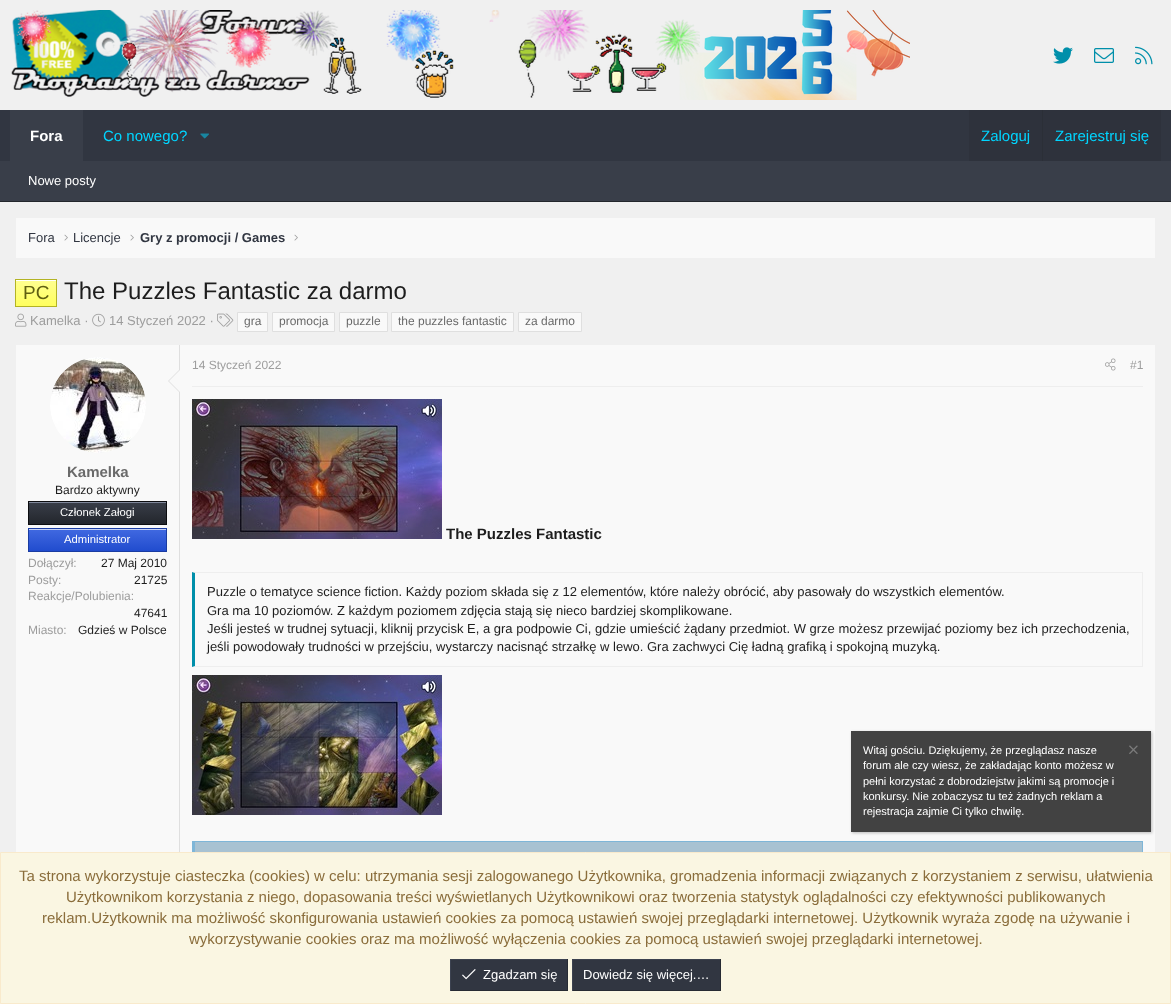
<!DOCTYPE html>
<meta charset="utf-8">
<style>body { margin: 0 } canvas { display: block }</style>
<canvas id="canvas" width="1171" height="1004"></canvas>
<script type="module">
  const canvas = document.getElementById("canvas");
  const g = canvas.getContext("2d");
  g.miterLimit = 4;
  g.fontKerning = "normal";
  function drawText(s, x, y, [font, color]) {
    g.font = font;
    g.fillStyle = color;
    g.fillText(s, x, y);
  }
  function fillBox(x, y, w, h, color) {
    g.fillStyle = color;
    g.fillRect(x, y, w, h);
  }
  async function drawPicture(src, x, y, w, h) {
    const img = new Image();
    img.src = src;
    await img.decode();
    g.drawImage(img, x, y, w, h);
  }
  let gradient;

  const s1 = ["bold 15px Liberation Sans", "#FFFFFF"];
  const s2 = ["15px Liberation Sans", "#00D5FF"];
  const s3 = ["13px Liberation Sans", "#FFFFFF"];
  const s4 = ["13px Liberation Sans", "#313641"];
  const s5 = ["bold 13px Liberation Sans", "#313641"];
  const s6 = ["19px Liberation Sans", "#5F5F11"];
  const s7 = ["24px Liberation Sans", "#1D1D1D"];
  const s8 = ["13px Liberation Sans", "#9D9D9D"];
  const s9 = ["12px Liberation Sans", "#6A6A6A"];
  const s10 = ["bold 15px Liberation Sans", "#6A6A6A"];
  const s11 = ["12px Liberation Sans", "#1D1D1D"];
  const s12 = ["11.25px Liberation Sans", "#FFFFFF"];
  const s13 = ["12px Liberation Sans", "#9D9D9D"];
  const s14 = ["bold 15px Liberation Sans", "#1D1D1D"];
  const s15 = ["13px Liberation Sans", "#1D1D1D"];
  const s16 = ["11px Liberation Sans", "#FFFFFF"];
  const s17 = ["15px Liberation Sans", "#8A6D3B"];

  fillBox(0, 0, 1171, 1004, "#F0F0F0");
  await drawPicture("pic1.png", 11, 10, 899, 90);
  await drawPicture("pic2.png", 1053, 47, 20, 17);
  await drawPicture("pic3.png", 1094, 48, 20, 15);
  await drawPicture("pic4.png", 1135, 46, 18, 19);
  fillBox(0, 110, 1171, 51, "#313641");
  fillBox(10, 110, 73, 51, "#393E49");
  drawText("Fora", 30, 141, s1);
  drawText("Co nowego?", 103, 141, s2);
  await drawPicture("pic5.png", 200, 133, 9, 6);
  fillBox(969, 110, 192, 51, "#2E323C");
  drawText("Zaloguj", 981, 141, s2);
  fillBox(1042, 110, 1, 51, "#2B2F37");
  drawText("Zarejestruj się", 1055, 141, s2);
  fillBox(0, 161, 1171, 40, "#393E49");
  fillBox(0, 201, 1171, 1, "#23262C");
  drawText("Nowe posty", 28, 185, s3);
  fillBox(16, 218, 1139, 40, "#F9F9F9");
  drawText("Fora", 28, 242, s4);
  await drawPicture("pic6.png", 64, 234, 4, 7);
  drawText("Licencje", 73, 242, s4);
  await drawPicture("pic6.png", 130, 234, 4, 7);
  drawText("Gry z promocji / Games", 140, 242, s5);
  await drawPicture("pic6.png", 294, 234, 4, 7);
  gradient = g.createLinearGradient(36, 280, 36, 306);
  gradient.addColorStop(0, "#FFFF91");
  gradient.addColorStop(1, "#FFFF5E");
  g.fillStyle = gradient;
  g.fillRect(16, 281, 40, 25);
  fillBox(16, 280, 40, 1, "#FFFFFF");
  g.strokeStyle = "#B3B325";
  g.strokeRect(15.5, 279.5, 41, 27);
  drawText("PC", 23, 299, s6);
  drawText("The Puzzles Fantastic za darmo", 64, 299, s7);
  await drawPicture("pic7.png", 15, 313, 12, 14);
  drawText("Kamelka ·", 30, 325, s8);
  await drawPicture("pic8.png", 92, 313, 13, 14);
  drawText("14 Styczeń 2022 ·", 109, 325, s8);
  await drawPicture("pic9.png", 217, 313, 17, 14);
  g.fillStyle = "#F9F9F9";
  g.beginPath();
  g.rect(237.5, 312.5, 30, 19);
  g.fill();
  g.strokeStyle = "#DFDFDF";
  g.stroke();
  drawText("gra", 244, 325, s9);
  g.fillStyle = "#F9F9F9";
  g.beginPath();
  g.rect(272.5, 312.5, 62, 19);
  g.fill();
  g.stroke();
  drawText("promocja", 279, 325, s9);
  g.fillStyle = "#F9F9F9";
  g.beginPath();
  g.rect(339.5, 312.5, 48, 19);
  g.fill();
  g.stroke();
  drawText("puzzle", 346, 325, s9);
  g.fillStyle = "#F9F9F9";
  g.beginPath();
  g.rect(391.5, 312.5, 122, 19);
  g.fill();
  g.stroke();
  drawText("the puzzles fantastic", 398, 325, s9);
  g.fillStyle = "#F9F9F9";
  g.beginPath();
  g.rect(518.5, 312.5, 63, 19);
  g.fill();
  g.stroke();
  drawText("za darmo", 525, 325, s9);
  fillBox(16, 345, 1139, 507, "#F9F9F9");
  fillBox(179, 345, 1, 507, "#DFDFDF");
  await drawPicture("pic10.png", 50, 357, 96, 96);
  g.beginPath();
  g.moveTo(180, 369);
  g.lineTo(180, 393);
  g.lineTo(168, 381);
  g.closePath();
  g.fill();
  g.fillStyle = "#F9F9F9";
  g.beginPath();
  g.moveTo(180, 370);
  g.lineTo(180, 392);
  g.lineTo(169, 381);
  g.closePath();
  g.fill();
  drawText("Kamelka", 67, 477, s10);
  drawText("Bardzo aktywny", 55, 494, s11);
  gradient = g.createLinearGradient(98, 502, 98, 524);
  gradient.addColorStop(0, "#393E49");
  gradient.addColorStop(1, "#23262C");
  g.fillStyle = gradient;
  g.fillRect(29, 503, 137, 21);
  fillBox(29, 502, 137, 1, "#80889B");
  g.strokeStyle = "#0C0D10";
  g.strokeRect(28.5, 501.5, 138, 23);
  drawText("Członek Załogi", 60, 516, s12);
  gradient = g.createLinearGradient(98, 529, 98, 551);
  gradient.addColorStop(0, "#4169E1");
  gradient.addColorStop(1, "#214CCE");
  g.fillStyle = gradient;
  g.fillRect(29, 530, 137, 21);
  fillBox(29, 529, 137, 1, "#C5D1F6");
  g.strokeStyle = "#1A3CA2";
  g.strokeRect(28.5, 528.5, 138, 23);
  drawText("Administrator", 64, 543, s12);
  drawText("Dołączył:", 28, 567, s13);
  drawText("27 Maj 2010", 101, 567, s11);
  drawText("Posty:", 28, 584, s13);
  drawText("21725", 134, 584, s11);
  drawText("Reakcje/Polubienia:", 28, 600, s13);
  drawText("47641", 134, 617, s11);
  drawText("Miasto:", 28, 634, s13);
  drawText("Gdzieś w Polsce", 78, 634, s11);
  fillBox(192, 386, 951, 1, "#EEEEEE");
  drawText("14 Styczeń 2022", 192, 369, s13);
  await drawPicture("pic11.png", 1105, 358, 11, 13);
  drawText("#1", 1130, 369, s13);
  await drawPicture("pic12.png", 192, 399, 250, 140);
  drawText("The Puzzles Fantastic", 446, 539, s14);
  g.fillStyle = "#EEEEEE";
  g.beginPath();
  g.moveTo(192, 572);
  g.lineTo(1143, 572);
  g.lineTo(1142, 573);
  g.lineTo(195, 573);
  g.closePath();
  g.fill();
  fillBox(1142, 572, 1, 95, "#EEEEEE");
  g.beginPath();
  g.moveTo(1143, 667);
  g.lineTo(192, 667);
  g.lineTo(195, 666);
  g.lineTo(1142, 666);
  g.closePath();
  g.fill();
  g.fillStyle = "#008FAA";
  g.beginPath();
  g.moveTo(192, 667);
  g.lineTo(192, 572);
  g.lineTo(195, 573);
  g.lineTo(195, 666);
  g.closePath();
  g.fill();
  drawText("Puzzle o tematyce science fiction. Każdy poziom składa się z 12 elementów, które należy obrócić, aby pasowały do wszystkich elementów.", 207, 596, s15);
  drawText("Gra ma 10 poziomów. Z każdym poziomem zdjęcia stają się nieco bardziej skomplikowane.", 207, 615, s15);
  drawText("Jeśli jesteś w trudnej sytuacji, kliknij przycisk E, a gra podpowie Ci, gdzie umieścić żądany przedmiot. W grze możesz przewijać poziomy bez ich przechodzenia,", 207, 633, s15);
  drawText("jeśli powodowały trudności w przejściu, wystarczy nacisnąć strzałkę w lewo. Gra zachwyci Cię ładną grafiką i spokojną muzyką.", 207, 651, s15);
  await drawPicture("pic13.png", 192, 675, 250, 140);
  fillBox(195, 842, 947, 10, "#A8C2D2");
  fillBox(192, 841, 951, 1, "#7EB6D8");
  fillBox(1142, 841, 1, 11, "#7EB6D8");
  fillBox(192, 841, 3, 11, "#7EB6D8");
  g.fillStyle = "rgba(0, 0, 0, 0.25)";
  g.filter = "blur(1.5px)";
  g.beginPath();
  g.rect(852, 732, 300, 101);
  g.fill();
  g.filter = "none";
  fillBox(851, 731, 300, 101, "#424242");
  drawText("Witaj gościu. Dziękujemy, że przeglądasz nasze", 863, 754, s16);
  await drawPicture("pic14.png", 1129, 745, 9, 9);
  drawText("forum ale czy wiesz, że zakładając konto możesz w", 863, 769, s16);
  drawText("pełni korzystać z dobrodziejstw jakimi są promocje i", 863, 785, s16);
  drawText("konkursy. Nie zobaczysz tu też żadnych reklam a", 863, 800, s16);
  drawText("rejestracja zajmie Ci tylko chwilę.", 863, 815, s16);
  g.fillStyle = "#FAF6E2";
  g.beginPath();
  g.rect(0.5, 852.5, 1170, 151);
  g.fill();
  g.strokeStyle = "#F9EACC";
  g.stroke();
  drawText("Ta strona wykorzystuje ciasteczka (cookies) w celu: utrzymania sesji zalogowanego Użytkownika, gromadzenia informacji związanych z korzystaniem z serwisu, ułatwienia", 19, 881, s17);
  drawText("Użytkownikom korzystania z niego, dopasowania treści wyświetlanych Użytkownikowi oraz tworzenia statystyk oglądalności czy efektywności publikowanych", 66, 902, s17);
  drawText("reklam.Użytkownik ma możliwość skonfigurowania ustawień cookies za pomocą ustawień swojej przeglądarki internetowej. Użytkownik wyraża zgodę na używanie i", 42, 923, s17);
  drawText("wykorzystywanie cookies oraz ma możliwość wyłączenia cookies za pomocą ustawień swojej przeglądarki internetowej.", 189, 944, s17);
  fillBox(451, 960, 116, 30, "#313641");
  fillBox(450, 959, 118, 1, "#3C4250");
  fillBox(567, 959, 1, 32, "#262A32");
  fillBox(450, 990, 118, 1, "#262A32");
  fillBox(450, 959, 1, 32, "#3C4250");
  await drawPicture("pic15.png", 462, 969, 14, 11);
  drawText("Zgadzam się", 483, 979, s3);
  fillBox(573, 960, 147, 30, "#313641");
  fillBox(572, 959, 149, 1, "#3C4250");
  fillBox(720, 959, 1, 32, "#262A32");
  fillBox(572, 990, 149, 1, "#262A32");
  fillBox(572, 959, 1, 32, "#3C4250");
  drawText("Dowiedz się więcej.…", 583, 979, s3);
</script>
